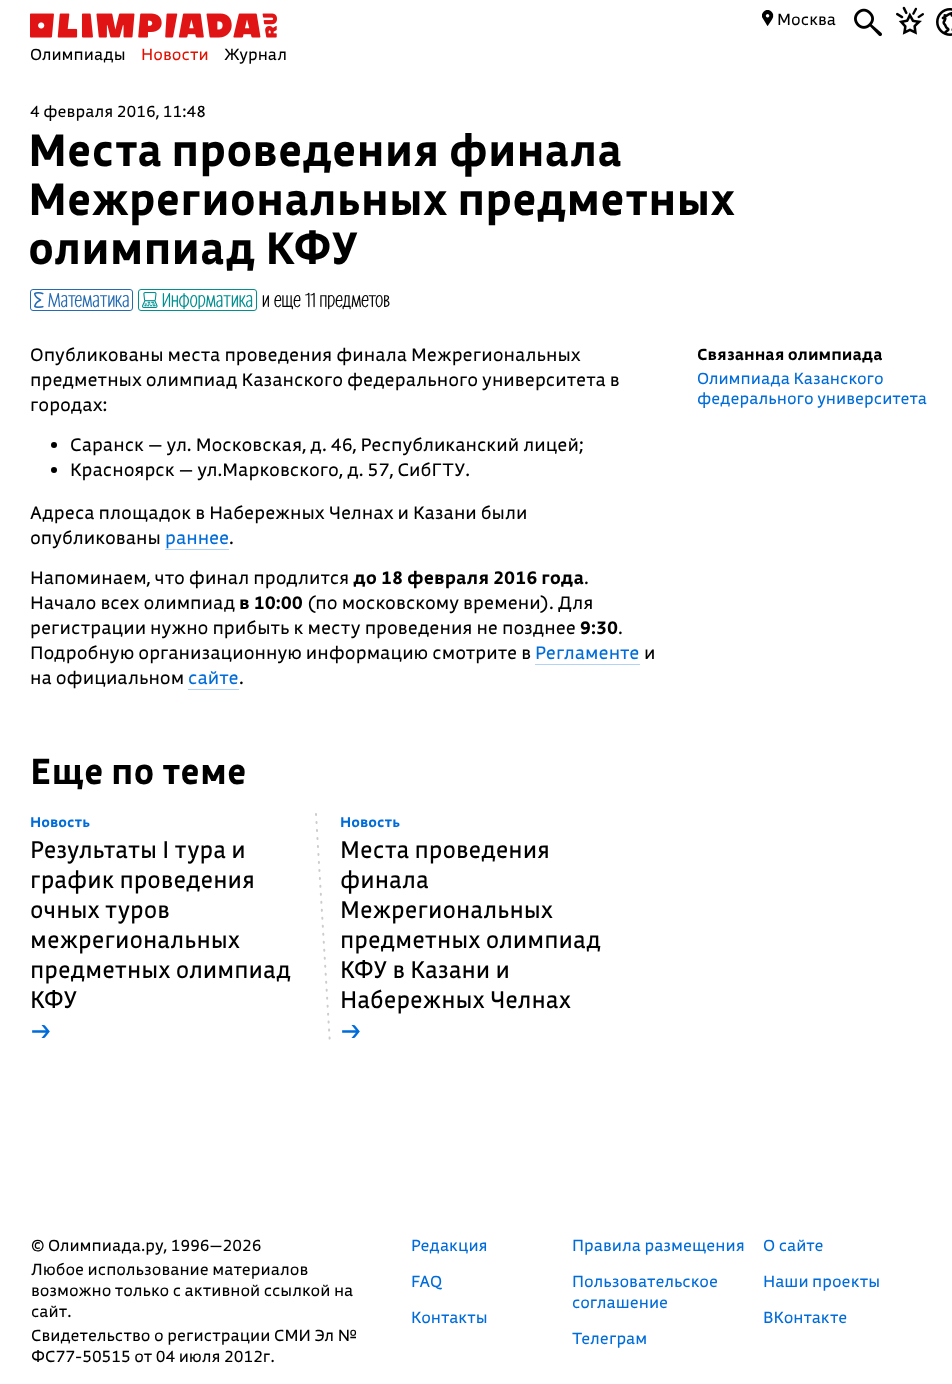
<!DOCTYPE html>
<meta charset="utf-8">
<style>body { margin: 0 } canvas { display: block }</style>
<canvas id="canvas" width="952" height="1384"></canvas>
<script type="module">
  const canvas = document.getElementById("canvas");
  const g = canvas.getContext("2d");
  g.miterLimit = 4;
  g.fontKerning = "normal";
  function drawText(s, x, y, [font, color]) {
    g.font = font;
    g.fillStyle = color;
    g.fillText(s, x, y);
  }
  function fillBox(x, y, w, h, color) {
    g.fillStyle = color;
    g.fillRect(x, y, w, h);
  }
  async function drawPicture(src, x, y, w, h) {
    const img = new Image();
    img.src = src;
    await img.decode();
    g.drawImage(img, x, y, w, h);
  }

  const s1 = ["16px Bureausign", "#000000"];
  const s2 = ["16px Bureausign", "#E11000"];
  const s3 = ["bold 45px 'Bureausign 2'", "#000000"];
  const s4 = ["20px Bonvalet", "#246BB2"];
  const s5 = ["20px Bonvalet", "#008E8F"];
  const s6 = ["20px Bonvalet", "#000000"];
  const s7 = ["18px Bureausign", "#000000"];
  const s8 = ["18px Bureausign", "#006CD9"];
  const s9 = ["bold 18px Bureausign", "#000000"];
  const s10 = ["bold 16px Bureausign", "#000000"];
  const s11 = ["16px Bureausign", "#006CD9"];
  const s12 = ["bold 36px 'Bureausign 2'", "#000000"];
  const s13 = ["bold 14px Bureausign", "#006CD9"];
  const s14 = ["24px 'Bureausign 2'", "#000000"];
  const s15 = ["24px 'Bureausign 2'", "#006CD9"];

  fillBox(0, 0, 952, 1384, "#FFFFFF");
  await drawPicture("pic1.png", 30, 13, 247, 25);
  await drawPicture("pic2.png", 762, 10, 12, 16);
  drawText("Москва", 777, 25, s1);
  await drawPicture("pic3.png", 854, 8, 28, 29);
  await drawPicture("pic4.png", 896, 6, 28, 29);
  await drawPicture("pic5.png", 936, 8, 16, 28);
  drawText("Олимпиады", 30, 60, s1);
  drawText("Новости", 141, 60, s2);
  drawText("Журнал", 224, 60, s1);
  drawText("4 февраля 2016, 11:48", 30, 117, s1);
  drawText("Места проведения финала", 28, 166, s3);
  drawText("Межрегиональных предметных", 28, 215, s3);
  drawText("олимпиад КФУ", 28, 264, s3);
  g.beginPath();
  g.roundRect(30.5, 289.5, 102, 21, 2.5);
  g.strokeStyle = "#246BB2";
  g.stroke();
  await drawPicture("pic6.png", 34, 292, 10, 16);
  drawText("Математика", 48, 307, s4);
  g.beginPath();
  g.roundRect(138.5, 289.5, 118, 21, 2.5);
  g.strokeStyle = "#008E8F";
  g.stroke();
  await drawPicture("pic7.png", 142, 292, 16, 16);
  drawText("Информатика", 162, 307, s5);
  drawText("и еще 11 предметов", 262, 307, s6);
  drawText("Опубликованы места проведения финала Межрегиональных", 30, 361, s7);
  drawText("предметных олимпиад Казанского федерального университета в", 30, 386, s7);
  drawText("городах:", 30, 411, s7);
  g.beginPath();
  g.arc(54, 445, 3, 0, Math.PI * 2);
  g.fill();
  drawText("Саранск — ул. Московская, д. 46, Республиканский лицей;", 70, 451, s7);
  g.beginPath();
  g.arc(54, 470, 3, 0, Math.PI * 2);
  g.fill();
  drawText("Красноярск — ул.Марковского, д. 57, СибГТУ.", 70, 476, s7);
  drawText("Адреса площадок в Набережных Челнах и Казани были", 30, 519, s7);
  drawText("опубликованы", 30, 544, s7);
  drawText("раннее", 165, 544, s8);
  fillBox(165, 549, 64, 1, "#B3D3F4");
  drawText(".", 229, 544, s7);
  drawText("Напоминаем, что финал продлится", 30, 584, s7);
  drawText("до 18 февраля 2016 года", 353, 584, s9);
  drawText(".", 584, 584, s7);
  drawText("Начало всех олимпиад", 30, 609, s7);
  drawText("в 10:00", 239, 609, s9);
  drawText("(по московскому времени). Для", 307, 609, s7);
  drawText("регистрации нужно прибыть к месту проведения не позднее", 30, 634, s7);
  drawText("9:30", 580, 634, s9);
  drawText(".", 618, 634, s7);
  drawText("Подробную организационную информацию смотрите в", 30, 659, s7);
  drawText("Регламенте", 535, 659, s8);
  fillBox(535, 664, 105, 1, "#B3D3F4");
  drawText("и", 644, 659, s7);
  drawText("на официальном", 30, 684, s7);
  drawText("сайте", 188, 684, s8);
  fillBox(188, 689, 51, 1, "#B3D3F4");
  drawText(".", 239, 684, s7);
  drawText("Связанная олимпиада", 697, 360, s10);
  drawText("Олимпиада Казанского", 697, 384, s11);
  drawText("федерального университета", 697, 404, s11);
  drawText("Еще по теме", 30, 784, s12);
  drawText("Новость", 30, 827, s13);
  drawText("Результаты I тура и", 30, 858, s14);
  drawText("график проведения", 30, 888, s14);
  drawText("очных туров", 30, 918, s14);
  drawText("межрегиональных", 30, 948, s14);
  drawText("предметных олимпиад", 30, 978, s14);
  drawText("КФУ", 30, 1008, s14);
  drawText("→", 30, 1038, s15);
  g.beginPath();
  g.moveTo(316, 814);
  g.lineTo(330, 1045);
  g.strokeStyle = "#CCCCCC";
  g.lineWidth = 2;
  g.lineCap = "round";
  g.setLineDash([1, 7]);
  g.stroke();
  drawText("Новость", 340, 827, s13);
  drawText("Места проведения", 340, 858, s14);
  drawText("финала", 340, 888, s14);
  drawText("Межрегиональных", 340, 918, s14);
  drawText("предметных олимпиад", 340, 948, s14);
  drawText("КФУ в Казани и", 340, 978, s14);
  drawText("Набережных Челнах", 340, 1008, s14);
  drawText("→", 340, 1038, s15);
  drawText("© Олимпиада.ру, 1996—2026", 31, 1251, s1);
  drawText("Любое использование материалов", 31, 1275, s1);
  drawText("возможно только с активной ссылкой на", 31, 1296, s1);
  drawText("сайт.", 31, 1317, s1);
  drawText("Свидетельство о регистрации СМИ Эл №", 31, 1341, s1);
  drawText("ФС77-50515 от 04 июля 2012г.", 31, 1362, s1);
  drawText("Редакция", 411, 1251, s11);
  drawText("FAQ", 411, 1287, s11);
  drawText("Контакты", 411, 1323, s11);
  drawText("Правила размещения", 572, 1251, s11);
  drawText("Пользовательское", 572, 1287, s11);
  drawText("соглашение", 572, 1308, s11);
  drawText("Телеграм", 572, 1344, s11);
  drawText("О сайте", 763, 1251, s11);
  drawText("Наши проекты", 763, 1287, s11);
  drawText("ВКонтакте", 763, 1323, s11);
</script>
